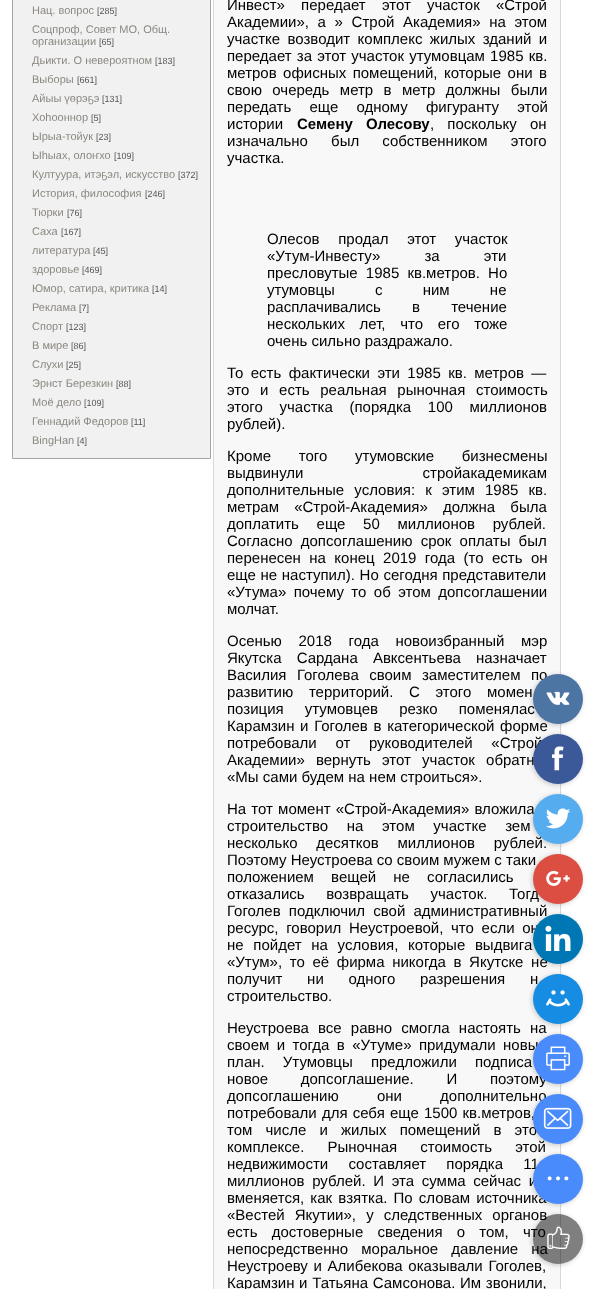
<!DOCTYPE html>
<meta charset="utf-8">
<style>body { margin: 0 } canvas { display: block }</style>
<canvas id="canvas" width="603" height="1289"></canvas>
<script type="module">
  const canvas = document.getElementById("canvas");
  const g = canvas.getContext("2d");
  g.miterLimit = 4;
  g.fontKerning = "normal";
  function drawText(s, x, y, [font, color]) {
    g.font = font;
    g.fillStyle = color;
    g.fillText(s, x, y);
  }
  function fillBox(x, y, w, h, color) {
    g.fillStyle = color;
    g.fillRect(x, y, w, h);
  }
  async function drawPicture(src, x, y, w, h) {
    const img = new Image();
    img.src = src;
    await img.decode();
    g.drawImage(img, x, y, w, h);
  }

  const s1 = ["11px Liberation Sans", "#8B8881"];
  const s2 = ["9px Liberation Sans", "#555555"];
  const s3 = ["15px Liberation Sans", "#000000"];
  const s4 = ["bold 15px Liberation Sans", "#000000"];

  fillBox(0, 0, 603, 1289, "#FFFFFF");
  g.fillStyle = "#F1F1F1";
  g.beginPath();
  g.rect(12.5, -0.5, 198, 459);
  g.fill();
  g.strokeStyle = "#A7A6A6";
  g.stroke();
  drawText("Нац. вопрос", 32, 14, s1);
  drawText("[285]", 97, 14, s2);
  drawText("Соцпроф, Совет МО, Общ.", 32, 33, s1);
  drawText("организации", 32, 45, s1);
  drawText("[65]", 99, 45, s2);
  drawText("Дьикти. О невероятном", 32, 64, s1);
  drawText("[183]", 155, 64, s2);
  drawText("Выборы", 32, 83, s1);
  drawText("[661]", 77, 83, s2);
  drawText("Айыы үөрэҕэ", 32, 102, s1);
  drawText("[131]", 102, 102, s2);
  drawText("Хоһооннор", 32, 121, s1);
  drawText("[5]", 91, 121, s2);
  drawText("Ырыа-тойук", 32, 140, s1);
  drawText("[23]", 96, 140, s2);
  drawText("Ыһыах, олоҥхо", 32, 159, s1);
  drawText("[109]", 114, 159, s2);
  drawText("Култуура, итэҕэл, искусство", 32, 178, s1);
  drawText("[372]", 178, 178, s2);
  drawText("История, философия", 32, 197, s1);
  drawText("[246]", 145, 197, s2);
  drawText("Тюрки", 32, 216, s1);
  drawText("[76]", 67, 216, s2);
  drawText("Саха", 32, 235, s1);
  drawText("[167]", 61, 235, s2);
  drawText("литература", 32, 254, s1);
  drawText("[45]", 93, 254, s2);
  drawText("здоровье", 32, 273, s1);
  drawText("[469]", 82, 273, s2);
  drawText("Юмор, сатира, критика", 32, 292, s1);
  drawText("[14]", 152, 292, s2);
  drawText("Реклама", 32, 311, s1);
  drawText("[7]", 79, 311, s2);
  drawText("Спорт", 32, 330, s1);
  drawText("[123]", 66, 330, s2);
  drawText("В мире", 32, 349, s1);
  drawText("[86]", 71, 349, s2);
  drawText("Слухи", 32, 368, s1);
  drawText("[25]", 66, 368, s2);
  drawText("Эрнст Березкин", 32, 387, s1);
  drawText("[88]", 116, 387, s2);
  drawText("Моё дело", 32, 406, s1);
  drawText("[109]", 84, 406, s2);
  drawText("Геннадий Федоров", 32, 425, s1);
  drawText("[11]", 131, 425, s2);
  drawText("BingHan", 32, 444, s1);
  drawText("[4]", 77, 444, s2);
  g.strokeStyle = "#D7D7D7";
  g.strokeRect(213.5, -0.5, 347, 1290);
  fillBox(214, 0, 346, 1289, "#F8F8F8");
  g.wordSpacing = "12px";
  drawText("Инвест» передает этот участок «Строй", 227, 10, s3);
  g.wordSpacing = "4.5px";
  drawText("Академии», а » Строй Академия» на этом", 227, 27, s3);
  g.wordSpacing = "3.25px";
  drawText("участке возводит комплекс жилых зданий и", 227, 44, s3);
  g.wordSpacing = "1px";
  drawText("передает за этот участок утумовцам 1985 кв.", 227, 61, s3);
  g.wordSpacing = "2.25px";
  drawText("метров офисных помещений, которые они в", 227, 78, s3);
  g.wordSpacing = "6.25px";
  drawText("свою очередь метр в метр должны были", 227, 95, s3);
  g.wordSpacing = "14px";
  drawText("передать еще одному фигуранту этой", 227, 112, s3);
  g.wordSpacing = "0px";
  drawText("истории", 227, 129, s3);
  g.wordSpacing = "9px";
  drawText("Семену Олесову", 297, 129, s4);
  drawText(", поскольку он", 430, 129, s3);
  g.wordSpacing = "19px";
  drawText("изначально был собственником этого", 227, 146, s3);
  g.wordSpacing = "0px";
  drawText("участка.", 227, 163, s3);
  g.wordSpacing = "14.5px";
  drawText("Олесов продал этот участок", 267, 244, s3);
  g.wordSpacing = "40px";
  drawText("«Утум-Инвесту» за эти", 267, 261, s3);
  g.wordSpacing = "4px";
  drawText("пресловутые 1985 кв.метров. Но", 267, 278, s3);
  g.wordSpacing = "36px";
  drawText("утумовцы с ним не", 267, 295, s3);
  g.wordSpacing = "27px";
  drawText("расплачивались в течение", 267, 312, s3);
  g.wordSpacing = "10.5px";
  drawText("нескольких лет, что его тоже", 267, 329, s3);
  g.wordSpacing = "0px";
  drawText("очень сильно раздражало.", 267, 346, s3);
  g.wordSpacing = "3.25px";
  drawText("То есть фактически эти 1985 кв. метров —", 227, 378, s3);
  g.wordSpacing = "6.5px";
  drawText("это и есть реальная рыночная стоимость", 227, 395, s3);
  g.wordSpacing = "12.5px";
  drawText("этого участка (порядка 100 миллионов", 227, 412, s3);
  g.wordSpacing = "0px";
  drawText("рублей).", 227, 429, s3);
  g.wordSpacing = "23.5px";
  drawText("Кроме того утумовские бизнесмены", 227, 461, s3);
  g.wordSpacing = "115px";
  drawText("выдвинули стройакадемикам", 227, 478, s3);
  g.wordSpacing = "6px";
  drawText("дополнительные условия: к этим 1985 кв.", 227, 495, s3);
  g.wordSpacing = "11px";
  drawText("метрам «Строй-Академия» должна была", 227, 512, s3);
  g.wordSpacing = "13.5px";
  drawText("доплатить еще 50 миллионов рублей.", 227, 529, s3);
  g.wordSpacing = "4px";
  drawText("Согласно допсоглашению срок оплаты был", 227, 546, s3);
  g.wordSpacing = "4.25px";
  drawText("перенесен на конец 2019 года (то есть он", 227, 563, s3);
  g.wordSpacing = "0.5px";
  drawText("еще не наступил). Но сегодня представители", 227, 580, s3);
  g.wordSpacing = "3.25px";
  drawText("«Утума» почему то об этом допсоглашении", 227, 597, s3);
  g.wordSpacing = "0px";
  drawText("молчат.", 227, 614, s3);
  g.wordSpacing = "12.5px";
  drawText("Осенью 2018 года новоизбранный мэр", 227, 646, s3);
  g.wordSpacing = "11px";
  drawText("Якутска Сардана Авксентьева назначает", 227, 663, s3);
  g.wordSpacing = "6.25px";
  drawText("Василия Гоголева своим заместителем по", 227, 680, s3);
  g.wordSpacing = "11.5px";
  drawText("развитию территорий. С этого момен", 227, 697, s3);
  g.wordSpacing = "17px";
  drawText("позиция утумовцев резко поменялас", 227, 714, s3);
  g.wordSpacing = "1.5px";
  drawText("Карамзин и Гоголев в категорической форме", 227, 731, s3);
  g.wordSpacing = "14.5px";
  drawText("потребовали от руководителей «Строй", 227, 748, s3);
  g.wordSpacing = "7px";
  drawText("Академии» вернуть этот участок обратн", 227, 765, s3);
  g.wordSpacing = "0px";
  drawText("«Мы сами будем на нем строиться».", 227, 782, s3);
  g.wordSpacing = "1px";
  drawText("На тот момент «Строй-Академия» вложила", 227, 814, s3);
  g.wordSpacing = "14.5px";
  drawText("строительство на этом участке зем", 227, 831, s3);
  drawText("несколько десятков миллионов рублей.", 227, 848, s3);
  g.wordSpacing = "0px";
  drawText("Поэтому Неустроева со своим мужем с таки", 227, 865, s3);
  g.wordSpacing = "13px";
  drawText("положением вещей не согласились", 227, 882, s3);
  g.wordSpacing = "17.5px";
  drawText("отказались возвращать участок. Тогд", 227, 899, s3);
  g.wordSpacing = "4px";
  drawText("Гоголев подключил свой административный", 227, 916, s3);
  g.wordSpacing = "3.5px";
  drawText("ресурс, говорил Неустроевой, что если он", 227, 933, s3);
  g.wordSpacing = "5.5px";
  drawText("не пойдет на условия, которые выдвига", 227, 950, s3);
  g.wordSpacing = "3.5px";
  drawText("«Утум», то её фирма никогда в Якутске не", 227, 967, s3);
  g.wordSpacing = "20.5px";
  drawText("получит ни одного разрешения н", 227, 984, s3);
  g.wordSpacing = "0px";
  drawText("строительство.", 227, 1001, s3);
  g.wordSpacing = "5px";
  drawText("Неустроева все равно смогла настоять на", 227, 1033, s3);
  g.wordSpacing = "3.25px";
  drawText("своем и тогда в «Утуме» придумали новы", 227, 1050, s3);
  g.wordSpacing = "14px";
  drawText("план. Утумовцы предложили подписа", 227, 1067, s3);
  g.wordSpacing = "28.5px";
  drawText("новое допсоглашение. И поэтому", 227, 1084, s3);
  g.wordSpacing = "34px";
  drawText("допсоглашению они дополнительно", 227, 1101, s3);
  g.wordSpacing = "1px";
  drawText("потребовали для себя еще 1500 кв.метров,", 227, 1118, s3);
  g.wordSpacing = "9px";
  drawText("том числе и жилых помещений в это", 227, 1135, s3);
  g.wordSpacing = "19px";
  drawText("комплексе. Рыночная стоимость этой", 227, 1152, s3);
  g.wordSpacing = "16px";
  drawText("недвижимости составляет порядка 11", 227, 1169, s3);
  g.wordSpacing = "3.5px";
  drawText("миллионов рублей. И эта сумма сейчас и", 227, 1186, s3);
  g.wordSpacing = "2px";
  drawText("вменяется, как взятка. По словам источника", 227, 1203, s3);
  g.wordSpacing = "6px";
  drawText("«Вестей Якутии», у следственных органов", 227, 1220, s3);
  g.wordSpacing = "10px";
  drawText("есть достоверные сведения о том, что", 227, 1237, s3);
  g.wordSpacing = "9px";
  drawText("непосредственно моральное давление на", 227, 1254, s3);
  g.wordSpacing = "1.5px";
  drawText("Неустроеву и Алибекова оказывали Гоголев,", 227, 1271, s3);
  g.wordSpacing = "0.5px";
  drawText("Карамзин и Татьяна Самсонова. Им звонили,", 227, 1288, s3);
  g.fillStyle = "rgba(0, 0, 0, 0.2)";
  g.filter = "blur(2.5px)";
  g.beginPath();
  g.roundRect(532, 675, 50, 50, 25);
  g.fill();
  g.filter = "none";
  g.fillStyle = "#4D75A3";
  g.beginPath();
  g.arc(558, 699, 25, 0, Math.PI * 2);
  g.fill();
  await drawPicture("pic1.png", 546, 691, 24, 14);
  g.fillStyle = "rgba(0, 0, 0, 0.2)";
  g.filter = "blur(2.5px)";
  g.beginPath();
  g.roundRect(532, 735, 50, 50, 25);
  g.fill();
  g.filter = "none";
  g.fillStyle = "#3B5998";
  g.beginPath();
  g.arc(558, 759, 25, 0, Math.PI * 2);
  g.fill();
  await drawPicture("pic2.png", 552, 746, 12, 25);
  g.fillStyle = "rgba(0, 0, 0, 0.2)";
  g.filter = "blur(2.5px)";
  g.beginPath();
  g.roundRect(532, 795, 50, 50, 25);
  g.fill();
  g.filter = "none";
  g.fillStyle = "#55ACEE";
  g.beginPath();
  g.arc(558, 819, 25, 0, Math.PI * 2);
  g.fill();
  await drawPicture("pic3.png", 546, 808, 25, 21);
  g.fillStyle = "rgba(0, 0, 0, 0.2)";
  g.filter = "blur(2.5px)";
  g.beginPath();
  g.roundRect(532, 855, 50, 50, 25);
  g.fill();
  g.filter = "none";
  g.fillStyle = "#DC4E41";
  g.beginPath();
  g.arc(558, 879, 25, 0, Math.PI * 2);
  g.fill();
  await drawPicture("pic4.png", 546, 870, 24, 16);
  g.fillStyle = "rgba(0, 0, 0, 0.2)";
  g.filter = "blur(2.5px)";
  g.beginPath();
  g.roundRect(532, 915, 50, 50, 25);
  g.fill();
  g.filter = "none";
  g.fillStyle = "#0077B5";
  g.beginPath();
  g.arc(558, 939, 25, 0, Math.PI * 2);
  g.fill();
  await drawPicture("pic5.png", 545, 925, 26, 26);
  g.fillStyle = "rgba(0, 0, 0, 0.2)";
  g.filter = "blur(2.5px)";
  g.beginPath();
  g.roundRect(532, 975, 50, 50, 25);
  g.fill();
  g.filter = "none";
  g.fillStyle = "#168DE2";
  g.beginPath();
  g.arc(558, 999, 25, 0, Math.PI * 2);
  g.fill();
  await drawPicture("pic6.png", 546, 990, 24, 17);
  g.fillStyle = "rgba(0, 0, 0, 0.2)";
  g.filter = "blur(2.5px)";
  g.beginPath();
  g.roundRect(532, 1035, 50, 50, 25);
  g.fill();
  g.filter = "none";
  g.fillStyle = "#498BFA";
  g.beginPath();
  g.arc(558, 1059, 25, 0, Math.PI * 2);
  g.fill();
  await drawPicture("pic7.png", 546, 1046, 24, 25);
  g.fillStyle = "rgba(0, 0, 0, 0.2)";
  g.filter = "blur(2.5px)";
  g.beginPath();
  g.roundRect(532, 1095, 50, 50, 25);
  g.fill();
  g.filter = "none";
  g.fillStyle = "#498BFA";
  g.beginPath();
  g.arc(558, 1119, 25, 0, Math.PI * 2);
  g.fill();
  await drawPicture("pic8.png", 543, 1107, 29, 22);
  g.fillStyle = "rgba(0, 0, 0, 0.2)";
  g.filter = "blur(2.5px)";
  g.beginPath();
  g.roundRect(532, 1155, 50, 50, 25);
  g.fill();
  g.filter = "none";
  g.fillStyle = "#498BFA";
  g.beginPath();
  g.arc(558, 1179, 25, 0, Math.PI * 2);
  g.fill();
  await drawPicture("pic9.png", 547, 1176, 22, 5);
  g.save();
  g.beginPath();
  g.moveTo(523, 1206);
  g.lineTo(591, 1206);
  g.lineTo(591, 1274);
  g.lineTo(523, 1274);
  g.closePath();
  g.moveTo(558, 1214);
  g.bezierCurveTo(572, 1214, 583, 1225, 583, 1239);
  g.bezierCurveTo(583, 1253, 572, 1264, 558, 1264);
  g.bezierCurveTo(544, 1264, 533, 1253, 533, 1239);
  g.bezierCurveTo(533, 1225, 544, 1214, 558, 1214);
  g.closePath();
  g.clip("evenodd");
  g.fillStyle = "rgba(0, 0, 0, 0.2)";
  g.filter = "blur(2.5px)";
  g.beginPath();
  g.roundRect(532, 1215, 50, 50, 25);
  g.fill();
  g.filter = "none";
  g.restore();
  g.fillStyle = "rgba(0, 0, 0, 0.5)";
  g.beginPath();
  g.arc(558, 1239, 25, 0, Math.PI * 2);
  g.fill();
  await drawPicture("pic10.png", 547, 1226, 23, 23);
</script>
